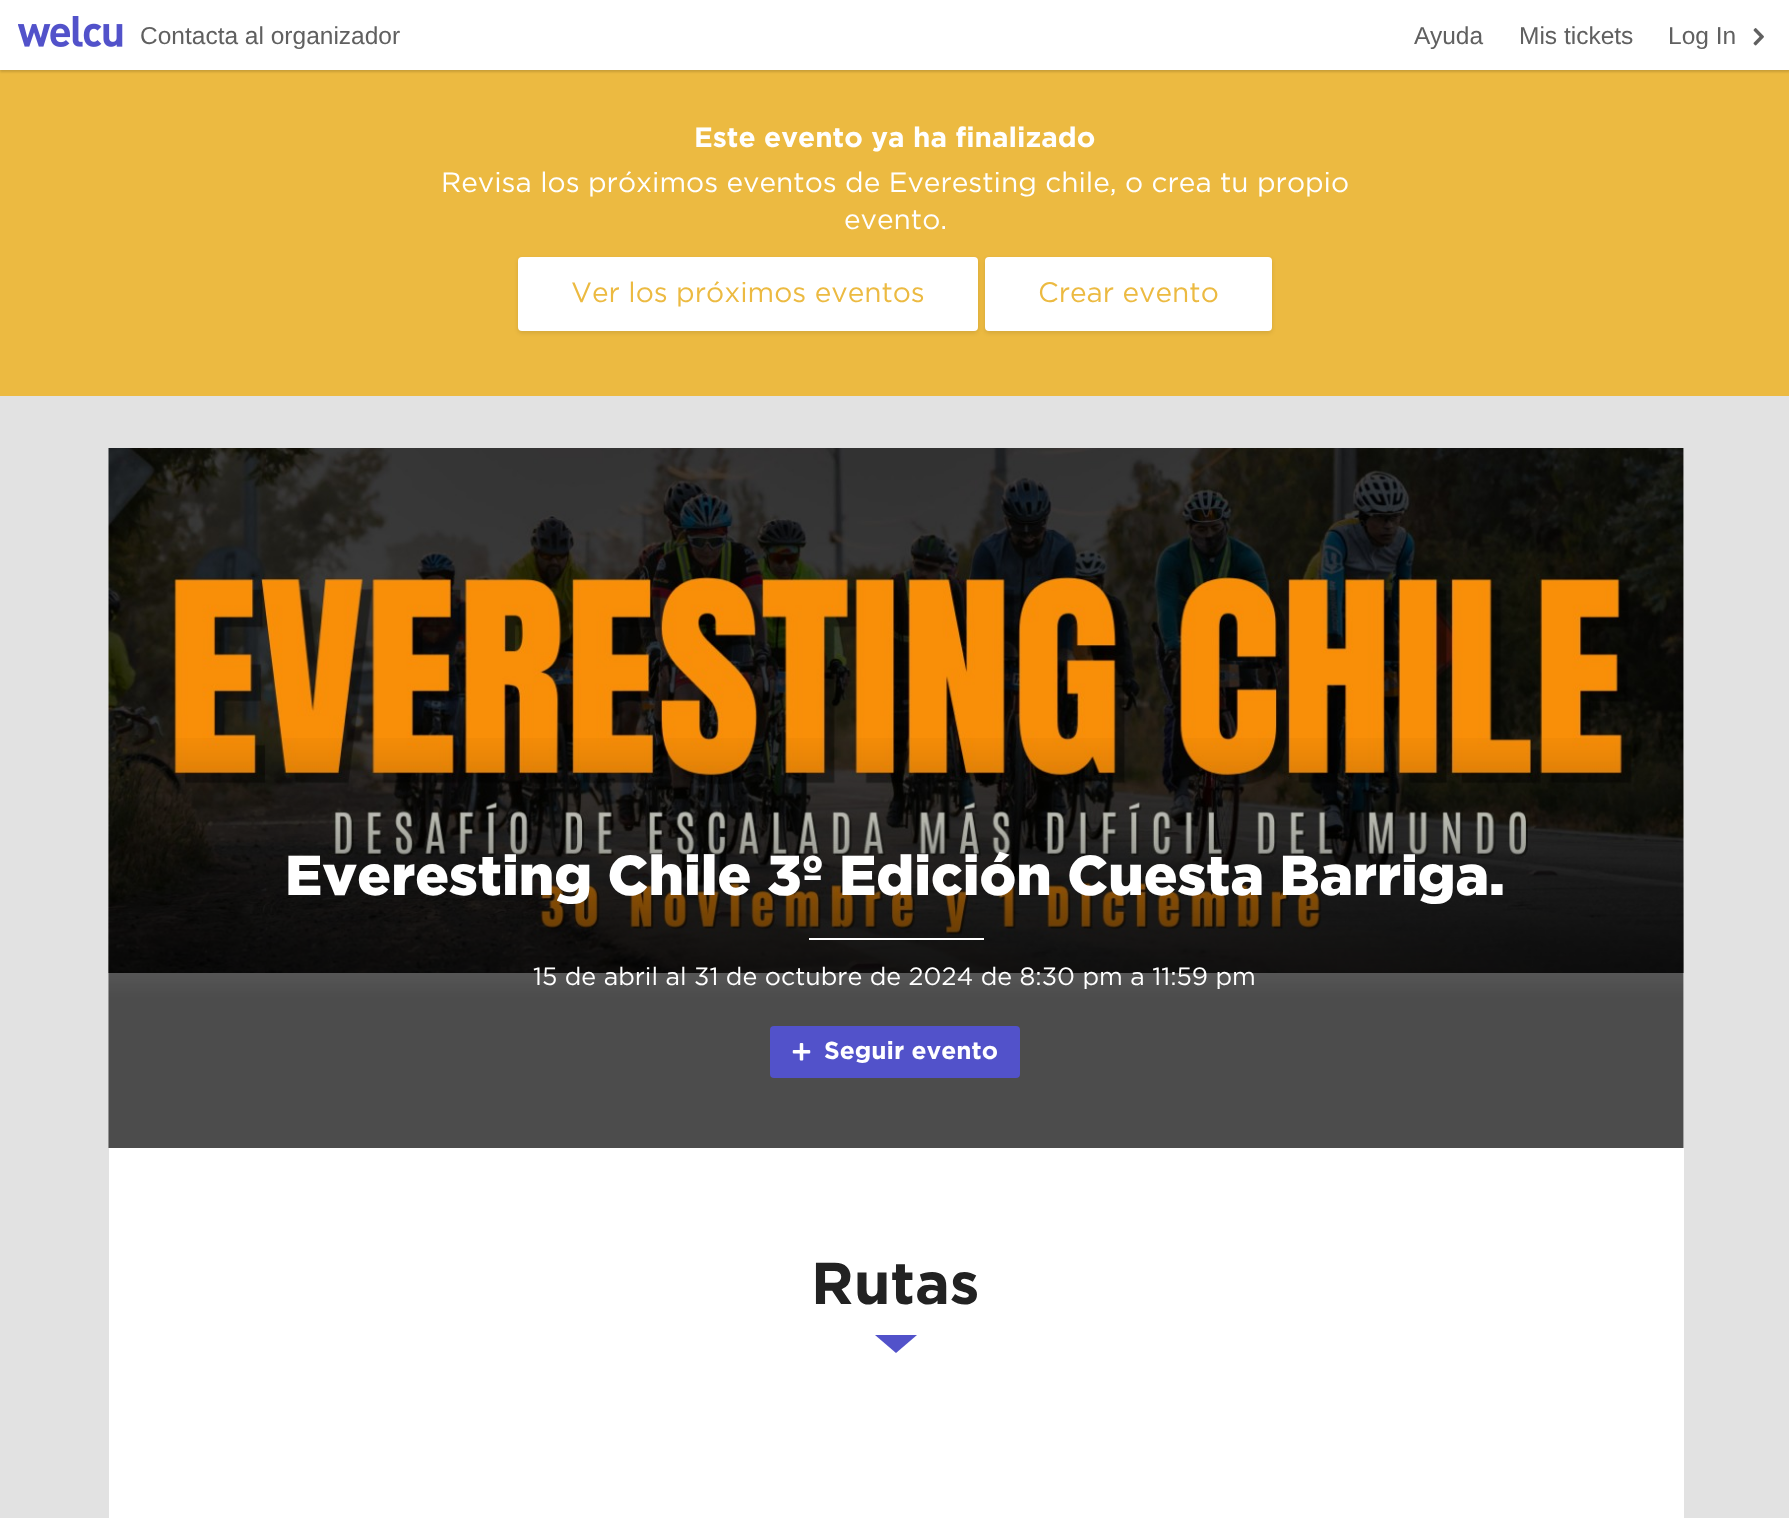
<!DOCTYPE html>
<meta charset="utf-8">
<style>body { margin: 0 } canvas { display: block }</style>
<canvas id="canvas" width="1789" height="1518"></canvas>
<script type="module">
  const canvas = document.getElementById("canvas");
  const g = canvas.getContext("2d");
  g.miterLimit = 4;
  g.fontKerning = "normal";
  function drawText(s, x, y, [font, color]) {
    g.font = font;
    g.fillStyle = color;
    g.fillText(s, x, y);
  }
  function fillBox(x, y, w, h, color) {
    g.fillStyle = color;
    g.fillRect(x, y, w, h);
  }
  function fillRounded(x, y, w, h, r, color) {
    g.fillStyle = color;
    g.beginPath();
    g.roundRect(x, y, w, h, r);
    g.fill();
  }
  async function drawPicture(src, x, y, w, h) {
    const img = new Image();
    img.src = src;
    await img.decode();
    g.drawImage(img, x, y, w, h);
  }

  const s1 = ["24.5px Liberation Sans", "#606060"];
  const s2 = ["bold 28px Gotham", "#FFFFFF"];
  const s3 = ["28px Gotham", "#FFFFFF"];
  const s4 = ["28px Gotham", "#ECBA41"];
  const s5 = ["900 56px Gotham", "#FFFFFF"];
  const s6 = ["25px Gotham", "#FFFFFF"];
  const s7 = ["bold 24.5px Gotham", "#FFFFFF"];
  const s8 = ["bold 59px Gotham", "#222222"];

  fillBox(0, 0, 1789, 1518, "#E2E2E2");
  fillBox(0, 70, 1789, 326, "#ECBA41");
  g.fillStyle = "rgba(0, 0, 0, 0.15)";
  g.filter = "blur(1px)";
  g.beginPath();
  g.rect(0, 2, 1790, 70);
  g.fill();
  g.filter = "none";
  fillBox(0, 0, 1789, 70, "#FFFFFF");
  await drawPicture("pic1.png", 18, 16, 105, 31);
  drawText("Contacta al organizador", 140, 44, s1);
  drawText("Ayuda", 1414, 44, s1);
  drawText("Mis tickets", 1519, 44, s1);
  drawText("Log In", 1668, 44, s1);
  await drawPicture("pic2.png", 1753, 28, 11, 18);
  drawText("Este evento ya ha finalizado", 694, 147, s2);
  drawText("Revisa los próximos eventos de Everesting chile, o crea tu propio", 441, 192, s3);
  drawText("evento.", 844, 229, s3);
  g.fillStyle = "rgba(0, 0, 0, 0.1)";
  g.filter = "blur(2px)";
  g.beginPath();
  g.roundRect(518, 259, 460, 74, 4);
  g.fill();
  g.filter = "none";
  fillRounded(518, 257, 460, 74, 4, "#FFFFFF");
  drawText("Ver los próximos eventos", 571, 302, s4);
  g.fillStyle = "rgba(0, 0, 0, 0.1)";
  g.filter = "blur(2px)";
  g.beginPath();
  g.roundRect(985, 259, 287, 74, 4);
  g.fill();
  g.filter = "none";
  fillRounded(985, 257, 287, 74, 4, "#FFFFFF");
  drawText("Crear evento", 1038, 302, s4);
  fillBox(109, 448, 1575, 1070, "#FFFFFF");
  await drawPicture("pic3.png", 108, 448, 1576, 525);
  await drawPicture("pic4.png", 108, 738, 1576, 410);
  drawText("Everesting Chile 3º Edición Cuesta Barriga.", 285, 895, s5);
  fillBox(809, 938, 175, 2, "#FFFFFF");
  drawText("15 de abril al 31 de octubre de 2024 de 8:30 pm a 11:59 pm", 533, 985, s6);
  fillRounded(770, 1026, 250, 52, 4, "#5252CA");
  await drawPicture("pic5.png", 792, 1043, 19, 18);
  drawText("Seguir evento", 824, 1059, s7);
  drawText("Rutas", 811, 1304, s8);
  g.fillStyle = "#5252CA";
  g.beginPath();
  g.moveTo(875, 1335);
  g.lineTo(917, 1335);
  g.lineTo(896, 1353);
  g.closePath();
  g.fill();
</script>
